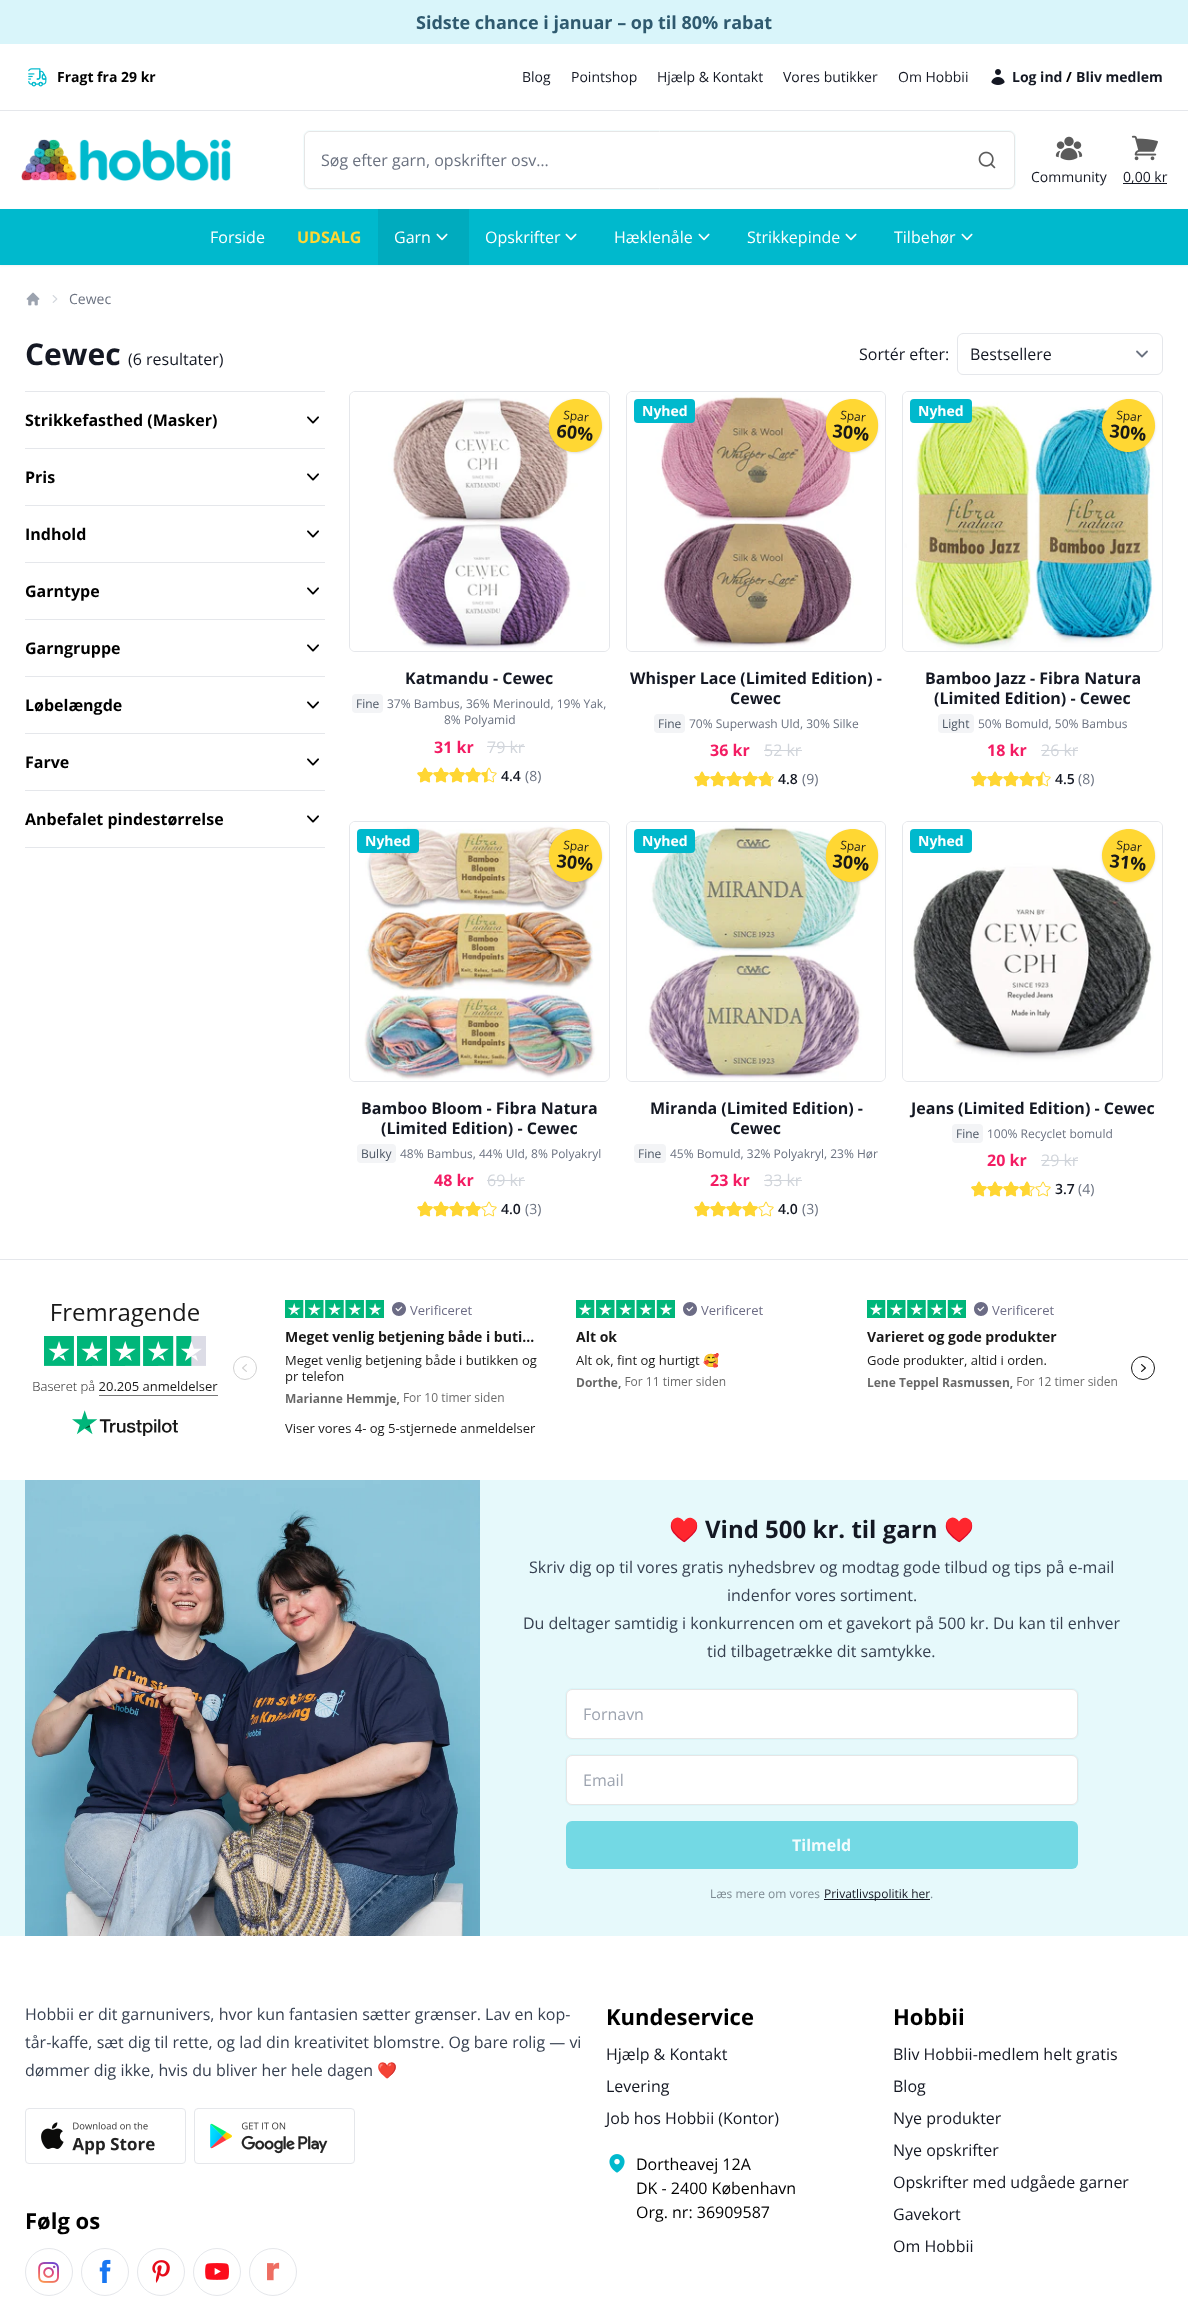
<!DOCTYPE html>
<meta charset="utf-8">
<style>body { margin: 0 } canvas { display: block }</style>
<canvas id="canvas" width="1188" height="2317"></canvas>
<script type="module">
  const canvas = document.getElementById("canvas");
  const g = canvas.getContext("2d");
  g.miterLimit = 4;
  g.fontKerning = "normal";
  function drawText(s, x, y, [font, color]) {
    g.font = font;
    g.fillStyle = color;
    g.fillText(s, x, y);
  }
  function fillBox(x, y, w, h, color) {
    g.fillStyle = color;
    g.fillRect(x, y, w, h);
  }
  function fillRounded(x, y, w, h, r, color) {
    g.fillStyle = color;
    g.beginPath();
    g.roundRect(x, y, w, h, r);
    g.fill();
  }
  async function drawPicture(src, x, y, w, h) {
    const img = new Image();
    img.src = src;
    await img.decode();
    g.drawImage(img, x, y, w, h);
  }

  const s1 = ["bold 18px Open Sans", "#2F5A6F"];
  const s2 = ["bold 14px Open Sans", "#000000"];
  const s3 = ["14px Open Sans", "#141823"];
  const s4 = ["bold 14px Open Sans", "#141823"];
  const s5 = ["16px Open Sans", "#6B7280"];
  const s6 = ["16px Open Sans", "#FFFFFF"];
  const s7 = ["bold 16px Open Sans", "#FFD733"];
  const s8 = ["14px Open Sans", "#6B7280"];
  const s9 = ["bold 30px Open Sans", "#141823"];
  const s10 = ["16px Open Sans", "#141823"];
  const s11 = ["bold 16px Open Sans", "#000000"];
  const s12 = ["bold 16px Open Sans", "#141823"];
  const s13 = ["12px Open Sans", "#4B5563"];
  const s14 = ["12px Open Sans", "#6B7280"];
  const s15 = ["bold 16px Open Sans", "#F31C63"];
  const s16 = ["16px Open Sans", "#D1D5DB"];
  const s17 = ["600 14px Open Sans", "#141823"];
  const s18 = ["bold 14px Open Sans", "#FFFFFF"];
  const s19 = ["bold 24px Noto Color Emoji", "#141823"];
  const s20 = ["bold 24px Open Sans", "#141823"];
  const s21 = ["16px Open Sans", "#374151"];
  const s22 = ["16px Open Sans", "#9CA3AF"];
  const s23 = ["bold 16px Open Sans", "#F3FCFD"];
  const s24 = ["12px Open Sans", "#7C8991"];
  const s25 = ["12px Open Sans", "#141823"];
  const s26 = ["16px Noto Color Emoji", "#374151"];
  const s27 = ["bold 22px Open Sans", "#000000"];
  const s28 = ["16px Open Sans", "#000000"];

  fillBox(0, 0, 1188, 2317, "#FFFFFF");
  fillBox(0, 0, 1188, 44, "#D9F5FA");
  drawText("Sidste chance i januar – op til 80% rabat", 416, 29, s1);
  fillBox(0, 110, 1188, 1, "#E5E7EB");
  await drawPicture("pic1.png", 28, 68, 19, 19);
  drawText("Fragt fra 29 kr", 57, 82, s2);
  drawText("Blog", 522, 82, s3);
  drawText("Pointshop", 571, 82, s3);
  drawText("Hjælp & Kontakt", 657, 82, s3);
  drawText("Vores butikker", 783, 82, s3);
  drawText("Om Hobbii", 898, 82, s3);
  await drawPicture("pic2.png", 991, 69, 14, 16);
  drawText("Log ind", 1012, 82, s4);
  drawText("/", 1066, 82, s2);
  drawText("Bliv medlem", 1076, 82, s4);
  await drawPicture("pic3.png", 21, 139, 210, 42);
  g.beginPath();
  g.roundRect(303.5, 130.5, 712, 59, 6.5);
  g.strokeStyle = "#F2FCFD";
  g.stroke();
  g.beginPath();
  g.roundRect(304.5, 131.5, 710, 57, 5.5);
  g.strokeStyle = "#E6E6E6";
  g.stroke();
  g.fillStyle = "#FFFFFF";
  g.beginPath();
  g.roundRect(305, 132, 655, 56, [6, 0, 0, 6]);
  g.fill();
  drawText("Søg efter garn, opskrifter osv…", 321, 166, s5);
  await drawPicture("pic4.png", 978, 151, 18, 18);
  await drawPicture("pic5.png", 1055, 136, 28, 25);
  drawText("Community", 1031, 182, s3);
  await drawPicture("pic6.png", 1131, 135, 27, 26);
  fillBox(1123, 183, 44, 1, "#141823");
  drawText("0,00 kr", 1123, 182, s3);
  g.fillStyle = "rgba(0, 0, 0, 0.05)";
  g.filter = "blur(1px)";
  g.beginPath();
  g.rect(0, 210, 1188, 56);
  g.fill();
  g.filter = "none";
  fillBox(0, 209, 1188, 56, "#00B9CD");
  drawText("Forside", 210, 243, s6);
  drawText("UDSALG", 297, 243, s7);
  fillBox(378, 209, 91, 56, "#00ABBE");
  drawText("Garn", 394, 243, s6);
  await drawPicture("pic7.png", 436, 233, 12, 8);
  drawText("Opskrifter", 485, 243, s6);
  await drawPicture("pic8.png", 565, 233, 12, 8);
  drawText("Hæklenåle", 614, 243, s6);
  await drawPicture("pic8.png", 698, 233, 12, 8);
  drawText("Strikkepinde", 747, 243, s6);
  await drawPicture("pic8.png", 845, 233, 12, 8);
  drawText("Tilbehør", 894, 243, s6);
  await drawPicture("pic8.png", 961, 233, 12, 8);
  await drawPicture("pic9.png", 26, 292, 14, 14);
  await drawPicture("pic10.png", 52, 295, 6, 8);
  drawText("Cewec", 69, 304, s8);
  drawText("Cewec", 25, 365, s9);
  drawText("(6 resultater)", 128, 365, s10);
  drawText("Sortér efter:", 859, 360, s10);
  g.beginPath();
  g.moveTo(1137, 351.5);
  g.lineTo(1142, 356.5);
  g.lineTo(1147, 351.5);
  g.strokeStyle = "#6B7280";
  g.lineWidth = 1.8;
  g.lineCap = "round";
  g.lineJoin = "round";
  g.stroke();
  g.beginPath();
  g.roundRect(957.5, 333.5, 205, 41, 5.5);
  g.strokeStyle = "#E5E7EB";
  g.lineWidth = 1;
  g.lineJoin = "miter";
  g.stroke();
  drawText("Bestsellere", 970, 360, s10);
  fillBox(25, 847, 300, 1, "#E5E7EB");
  fillBox(25, 391, 300, 1, "#E5E7EB");
  drawText("Strikkefasthed (Masker)", 25, 426, s11);
  await drawPicture("pic11.png", 307, 416, 12, 8);
  fillBox(25, 448, 300, 1, "#E5E7EB");
  drawText("Pris", 25, 483, s11);
  await drawPicture("pic11.png", 307, 473, 12, 8);
  fillBox(25, 505, 300, 1, "#E5E7EB");
  drawText("Indhold", 25, 540, s11);
  await drawPicture("pic11.png", 307, 530, 12, 8);
  fillBox(25, 562, 300, 1, "#E5E7EB");
  drawText("Garntype", 25, 597, s11);
  await drawPicture("pic11.png", 307, 587, 12, 8);
  fillBox(25, 619, 300, 1, "#E5E7EB");
  drawText("Garngruppe", 25, 654, s11);
  await drawPicture("pic11.png", 307, 644, 12, 8);
  fillBox(25, 676, 300, 1, "#E5E7EB");
  drawText("Løbelængde", 25, 711, s11);
  await drawPicture("pic11.png", 307, 701, 12, 8);
  fillBox(25, 733, 300, 1, "#E5E7EB");
  drawText("Farve", 25, 768, s11);
  await drawPicture("pic11.png", 307, 758, 12, 8);
  fillBox(25, 790, 300, 1, "#E5E7EB");
  drawText("Anbefalet pindestørrelse", 25, 825, s11);
  await drawPicture("pic11.png", 307, 815, 12, 8);
  g.beginPath();
  g.roundRect(349.5, 391.5, 260, 260, 5.5);
  g.stroke();
  await drawPicture("pic12.png", 350, 392, 259, 259);
  g.fillStyle = "rgba(0, 0, 0, 0.1)";
  g.filter = "blur(1px)";
  g.beginPath();
  g.roundRect(550, 401, 51, 51, 25.5);
  g.fill();
  g.filter = "none";
  g.filter = "blur(1.5px)";
  g.beginPath();
  g.roundRect(549, 400, 53, 53, 26.5);
  g.fill();
  g.filter = "none";
  g.fillStyle = "#FFD733";
  g.beginPath();
  g.moveTo(578, 399);
  g.bezierCurveTo(593, 401, 603, 414, 602, 428);
  g.bezierCurveTo(600, 443, 587, 453, 572, 452);
  g.bezierCurveTo(558, 450, 547, 437, 549, 423);
  g.bezierCurveTo(551, 408, 564, 398, 578, 399);
  g.closePath();
  g.fill();
  g.font = "12px Open Sans";
  g.fillStyle = "#181818";
  g.save();
  g.translate(563, 419);
  g.rotate(6 * Math.PI / 180);
  g.fillText("Spar", 0, 0);
  g.restore();
  g.font = "bold 18px Open Sans";
  g.save();
  g.translate(556, 437);
  g.rotate(6 * Math.PI / 180);
  g.fillText("60%", 0, 0);
  g.restore();
  drawText("Katmandu - Cewec", 405, 684, s12);
  fillRounded(352, 694, 31, 19, 4, "#F3F4F6");
  drawText("Fine", 356, 708, s13);
  drawText("37% Bambus, 36% Merinould, 19% Yak,", 387, 708, s14);
  drawText("8% Polyamid", 444, 724, s14);
  drawText("31 kr", 434, 753, s15);
  drawText("79 kr", 487, 753, s16);
  fillBox(487, 746, 38, 1, "#D1D5DB");
  await drawPicture("pic13.png", 417, 767, 80, 16);
  await drawPicture("pic14.png", 417, 767, 71, 16);
  drawText("4.4", 501, 781, s17);
  drawText("(8)", 525, 781, s8);
  g.beginPath();
  g.roundRect(626.5, 391.5, 259, 260, 5.5);
  g.stroke();
  await drawPicture("pic15.png", 627, 392, 258, 259);
  fillRounded(634, 399, 61, 24, 4, "#00B9CD");
  drawText("Nyhed", 642, 416, s18);
  g.fillStyle = "rgba(0, 0, 0, 0.1)";
  g.filter = "blur(1px)";
  g.beginPath();
  g.roundRect(827, 401, 50, 51, 25);
  g.fill();
  g.filter = "none";
  g.filter = "blur(1.5px)";
  g.beginPath();
  g.roundRect(826, 400, 52, 53, 26);
  g.fill();
  g.filter = "none";
  g.fillStyle = "#FFD733";
  g.beginPath();
  g.moveTo(855, 399);
  g.bezierCurveTo(869, 401, 880, 414, 878, 428);
  g.bezierCurveTo(877, 443, 864, 453, 849, 452);
  g.bezierCurveTo(835, 450, 824, 437, 826, 423);
  g.bezierCurveTo(827, 408, 840, 398, 855, 399);
  g.closePath();
  g.fill();
  g.font = "12px Open Sans";
  g.fillStyle = "#181818";
  g.save();
  g.translate(840, 419);
  g.rotate(6 * Math.PI / 180);
  g.fillText("Spar", 0, 0);
  g.restore();
  g.font = "bold 18px Open Sans";
  g.save();
  g.translate(832, 437);
  g.rotate(6 * Math.PI / 180);
  g.fillText("30%", 0, 0);
  g.restore();
  drawText("Whisper Lace (Limited Edition) -", 630, 684, s12);
  drawText("Cewec", 730, 704, s12);
  fillRounded(654, 714, 31, 19, 4, "#F3F4F6");
  drawText("Fine", 658, 728, s13);
  drawText("70% Superwash Uld, 30% Silke", 689, 728, s14);
  drawText("36 kr", 710, 756, s15);
  drawText("52 kr", 764, 756, s16);
  fillBox(764, 750, 38, 1, "#D1D5DB");
  await drawPicture("pic13.png", 694, 771, 80, 16);
  await drawPicture("pic16.png", 694, 771, 77, 16);
  drawText("4.8", 778, 784, s17);
  drawText("(9)", 802, 784, s8);
  g.beginPath();
  g.roundRect(902.5, 391.5, 260, 260, 5.5);
  g.stroke();
  await drawPicture("pic17.png", 903, 392, 259, 259);
  fillRounded(910, 399, 62, 24, 4, "#00B9CD");
  drawText("Nyhed", 918, 416, s18);
  g.fillStyle = "rgba(0, 0, 0, 0.1)";
  g.filter = "blur(1px)";
  g.beginPath();
  g.roundRect(1103, 401, 51, 51, 25.5);
  g.fill();
  g.filter = "none";
  g.filter = "blur(1.5px)";
  g.beginPath();
  g.roundRect(1102, 400, 53, 53, 26.5);
  g.fill();
  g.filter = "none";
  g.fillStyle = "#FFD733";
  g.beginPath();
  g.moveTo(1131, 399);
  g.bezierCurveTo(1146, 401, 1156, 414, 1155, 428);
  g.bezierCurveTo(1153, 443, 1140, 453, 1126, 452);
  g.bezierCurveTo(1111, 450, 1101, 437, 1102, 423);
  g.bezierCurveTo(1104, 408, 1117, 398, 1131, 399);
  g.closePath();
  g.fill();
  g.font = "12px Open Sans";
  g.fillStyle = "#181818";
  g.save();
  g.translate(1116, 419);
  g.rotate(6 * Math.PI / 180);
  g.fillText("Spar", 0, 0);
  g.restore();
  g.font = "bold 18px Open Sans";
  g.save();
  g.translate(1109, 437);
  g.rotate(6 * Math.PI / 180);
  g.fillText("30%", 0, 0);
  g.restore();
  drawText("Bamboo Jazz - Fibra Natura", 925, 684, s12);
  drawText("(Limited Edition) - Cewec", 934, 704, s12);
  fillRounded(938, 714, 36, 19, 4, "#F3F4F6");
  drawText("Light", 942, 728, s13);
  drawText("50% Bomuld, 50% Bambus", 978, 728, s14);
  drawText("18 kr", 987, 756, s15);
  drawText("26 kr", 1041, 756, s16);
  fillBox(1041, 750, 37, 1, "#D1D5DB");
  await drawPicture("pic13.png", 971, 771, 80, 16);
  await drawPicture("pic18.png", 971, 771, 72, 16);
  drawText("4.5", 1055, 784, s17);
  drawText("(8)", 1078, 784, s8);
  g.beginPath();
  g.roundRect(349.5, 821.5, 260, 260, 5.5);
  g.stroke();
  await drawPicture("pic19.png", 350, 822, 259, 259);
  fillRounded(357, 829, 62, 24, 4, "#00B9CD");
  drawText("Nyhed", 365, 846, s18);
  g.fillStyle = "rgba(0, 0, 0, 0.1)";
  g.filter = "blur(1px)";
  g.beginPath();
  g.roundRect(550, 831, 51, 51, 25.5);
  g.fill();
  g.filter = "none";
  g.filter = "blur(1.5px)";
  g.beginPath();
  g.roundRect(549, 830, 53, 53, 26.5);
  g.fill();
  g.filter = "none";
  g.fillStyle = "#FFD733";
  g.beginPath();
  g.moveTo(578, 829);
  g.bezierCurveTo(593, 831, 603, 844, 602, 858);
  g.bezierCurveTo(600, 873, 587, 883, 572, 882);
  g.bezierCurveTo(558, 880, 547, 867, 549, 853);
  g.bezierCurveTo(551, 838, 564, 828, 578, 829);
  g.closePath();
  g.fill();
  g.font = "12px Open Sans";
  g.fillStyle = "#181818";
  g.save();
  g.translate(563, 849);
  g.rotate(6 * Math.PI / 180);
  g.fillText("Spar", 0, 0);
  g.restore();
  g.font = "bold 18px Open Sans";
  g.save();
  g.translate(556, 867);
  g.rotate(6 * Math.PI / 180);
  g.fillText("30%", 0, 0);
  g.restore();
  drawText("Bamboo Bloom - Fibra Natura", 361, 1114, s12);
  drawText("(Limited Edition) - Cewec", 381, 1134, s12);
  fillRounded(357, 1144, 39, 19, 4, "#F3F4F6");
  drawText("Bulky", 361, 1158, s13);
  drawText("48% Bambus, 44% Uld, 8% Polyakryl", 400, 1158, s14);
  drawText("48 kr", 434, 1186, s15);
  drawText("69 kr", 487, 1186, s16);
  fillBox(487, 1180, 38, 1, "#D1D5DB");
  await drawPicture("pic13.png", 417, 1201, 80, 16);
  await drawPicture("pic20.png", 417, 1201, 65, 16);
  drawText("4.0", 501, 1214, s17);
  drawText("(3)", 525, 1214, s8);
  g.beginPath();
  g.roundRect(626.5, 821.5, 259, 260, 5.5);
  g.stroke();
  await drawPicture("pic21.png", 627, 822, 258, 259);
  fillRounded(634, 829, 61, 24, 4, "#00B9CD");
  drawText("Nyhed", 642, 846, s18);
  g.fillStyle = "rgba(0, 0, 0, 0.1)";
  g.filter = "blur(1px)";
  g.beginPath();
  g.roundRect(827, 831, 50, 51, 25);
  g.fill();
  g.filter = "none";
  g.filter = "blur(1.5px)";
  g.beginPath();
  g.roundRect(826, 830, 52, 53, 26);
  g.fill();
  g.filter = "none";
  g.fillStyle = "#FFD733";
  g.beginPath();
  g.moveTo(855, 829);
  g.bezierCurveTo(869, 831, 880, 844, 878, 858);
  g.bezierCurveTo(877, 873, 864, 883, 849, 882);
  g.bezierCurveTo(835, 880, 824, 867, 826, 853);
  g.bezierCurveTo(827, 838, 840, 828, 855, 829);
  g.closePath();
  g.fill();
  g.font = "12px Open Sans";
  g.fillStyle = "#181818";
  g.save();
  g.translate(840, 849);
  g.rotate(6 * Math.PI / 180);
  g.fillText("Spar", 0, 0);
  g.restore();
  g.font = "bold 18px Open Sans";
  g.save();
  g.translate(832, 867);
  g.rotate(6 * Math.PI / 180);
  g.fillText("30%", 0, 0);
  g.restore();
  drawText("Miranda (Limited Edition) -", 650, 1114, s12);
  drawText("Cewec", 730, 1134, s12);
  fillRounded(634, 1144, 32, 19, 4, "#F3F4F6");
  drawText("Fine", 638, 1158, s13);
  drawText("45% Bomuld, 32% Polyakryl, 23% Hør", 670, 1158, s14);
  drawText("23 kr", 710, 1186, s15);
  drawText("33 kr", 764, 1186, s16);
  fillBox(764, 1180, 38, 1, "#D1D5DB");
  await drawPicture("pic13.png", 694, 1201, 80, 16);
  await drawPicture("pic22.png", 694, 1201, 64, 16);
  drawText("4.0", 778, 1214, s17);
  drawText("(3)", 802, 1214, s8);
  g.beginPath();
  g.roundRect(902.5, 821.5, 260, 260, 5.5);
  g.stroke();
  await drawPicture("pic23.png", 903, 822, 259, 259);
  fillRounded(910, 829, 62, 24, 4, "#00B9CD");
  drawText("Nyhed", 918, 846, s18);
  g.fillStyle = "rgba(0, 0, 0, 0.1)";
  g.filter = "blur(1px)";
  g.beginPath();
  g.roundRect(1103, 831, 51, 51, 25.5);
  g.fill();
  g.filter = "none";
  g.filter = "blur(1.5px)";
  g.beginPath();
  g.roundRect(1102, 830, 53, 53, 26.5);
  g.fill();
  g.filter = "none";
  g.fillStyle = "#FFD733";
  g.beginPath();
  g.moveTo(1131, 829);
  g.bezierCurveTo(1146, 831, 1156, 844, 1155, 858);
  g.bezierCurveTo(1153, 873, 1140, 883, 1126, 882);
  g.bezierCurveTo(1111, 880, 1101, 867, 1102, 853);
  g.bezierCurveTo(1104, 838, 1117, 828, 1131, 829);
  g.closePath();
  g.fill();
  g.font = "12px Open Sans";
  g.fillStyle = "#181818";
  g.save();
  g.translate(1116, 849);
  g.rotate(6 * Math.PI / 180);
  g.fillText("Spar", 0, 0);
  g.restore();
  g.font = "bold 18px Open Sans";
  g.save();
  g.translate(1109, 867);
  g.rotate(6 * Math.PI / 180);
  g.fillText("31%", 0, 0);
  g.restore();
  drawText("Jeans (Limited Edition) - Cewec", 911, 1114, s12);
  fillRounded(952, 1124, 31, 19, 4, "#F3F4F6");
  drawText("Fine", 956, 1138, s13);
  drawText("100% Recyclet bomuld", 987, 1138, s14);
  drawText("20 kr", 987, 1166, s15);
  drawText("29 kr", 1041, 1166, s16);
  fillBox(1041, 1160, 37, 1, "#D1D5DB");
  await drawPicture("pic13.png", 971, 1181, 80, 16);
  await drawPicture("pic24.png", 971, 1181, 59, 16);
  drawText("3.7", 1055, 1194, s17);
  drawText("(4)", 1078, 1194, s8);
  fillBox(0, 1259, 1188, 1, "#E5E7EB");
  await drawPicture("pic25.png", 33, 1300, 1122, 136);
  fillBox(0, 1480, 1188, 456, "#E6F9FB");
  await drawPicture("pic26.png", 25, 1480, 455, 456);
  drawText("♥️", 669, 1538, s19);
  drawText("Vind 500 kr. til garn", 705, 1538, s20);
  drawText("♥️", 944, 1538, s19);
  drawText("Skriv dig op til vores gratis nyhedsbrev og modtag gode tilbud og tips på e-mail", 529, 1573, s21);
  drawText("indenfor vores sortiment.", 727, 1601, s21);
  drawText("Du deltager samtidig i konkurrencen om et gavekort på 500 kr. Du kan til enhver", 523, 1629, s21);
  drawText("tid tilbagetrække dit samtykke.", 707, 1657, s21);
  g.beginPath();
  g.roundRect(565.5, 1688.5, 513, 51, 6.5);
  g.strokeStyle = "#DBF6F9";
  g.stroke();
  g.fillStyle = "#FFFFFF";
  g.beginPath();
  g.roundRect(566.5, 1689.5, 511, 49, 5.5);
  g.fill();
  g.strokeStyle = "#E6E6E6";
  g.stroke();
  drawText("Fornavn", 583, 1720, s22);
  g.beginPath();
  g.roundRect(565.5, 1754.5, 513, 51, 6.5);
  g.strokeStyle = "#DBF6F9";
  g.stroke();
  g.fillStyle = "#FFFFFF";
  g.beginPath();
  g.roundRect(566.5, 1755.5, 511, 49, 5.5);
  g.fill();
  g.strokeStyle = "#E6E6E6";
  g.stroke();
  drawText("Email", 583, 1786, s22);
  fillRounded(566, 1821, 512, 48, 6, "#73D9E4");
  drawText("Tilmeld", 792, 1851, s23);
  drawText("Læs mere om vores", 710, 1898, s24);
  fillBox(824, 1899, 106, 1, "#141823");
  drawText("Privatlivspolitik her", 824, 1898, s25);
  drawText(".", 930, 1898, s24);
  drawText("Hobbii er dit garnunivers, hvor kun fantasien sætter grænser. Lav en kop-", 25, 2020, s21);
  drawText("tår-kaffe, sæt dig til rette, og lad din kreativitet blomstre. Og bare rolig — vi", 25, 2048, s21);
  drawText("dømmer dig ikke, hvis du bliver her hele dagen", 25, 2076, s21);
  drawText("❤️", 377, 2076, s26);
  g.beginPath();
  g.roundRect(25.5, 2108.5, 160, 55, 3.5);
  g.strokeStyle = "#E5E7EB";
  g.stroke();
  await drawPicture("pic27.png", 41, 2122, 114, 33);
  g.beginPath();
  g.roundRect(194.5, 2108.5, 160, 55, 3.5);
  g.stroke();
  await drawPicture("pic28.png", 210, 2122, 118, 32);
  drawText("Følg os", 25, 2229, s27);
  g.beginPath();
  g.arc(49, 2272, 23.5, 0, Math.PI * 2);
  g.stroke();
  await drawPicture("pic29.png", 38, 2262, 21, 21);
  g.beginPath();
  g.arc(105, 2272, 23.5, 0, Math.PI * 2);
  g.stroke();
  await drawPicture("pic30.png", 99, 2259, 12, 24);
  g.beginPath();
  g.arc(161, 2272, 23.5, 0, Math.PI * 2);
  g.stroke();
  await drawPicture("pic31.png", 152, 2260, 18, 23);
  g.beginPath();
  g.arc(217, 2272, 23.5, 0, Math.PI * 2);
  g.stroke();
  await drawPicture("pic32.png", 205, 2263, 24, 17);
  g.beginPath();
  g.arc(273, 2272, 23.5, 0, Math.PI * 2);
  g.stroke();
  await drawPicture("pic33.png", 267, 2262, 13, 19);
  drawText("Kundeservice", 606, 2025, s27);
  drawText("Hjælp & Kontakt", 606, 2060, s10);
  drawText("Levering", 606, 2092, s10);
  drawText("Job hos Hobbii (Kontor)", 606, 2124, s10);
  await drawPicture("pic34.png", 609, 2154, 16, 19);
  drawText("Dortheavej 12A", 636, 2170, s28);
  drawText("DK - 2400 København", 636, 2194, s28);
  drawText("Org. nr: 36909587", 636, 2218, s28);
  drawText("Hobbii", 893, 2025, s27);
  drawText("Bliv Hobbii-medlem helt gratis", 893, 2060, s10);
  drawText("Blog", 893, 2092, s10);
  drawText("Nye produkter", 893, 2124, s10);
  drawText("Nye opskrifter", 893, 2156, s10);
  drawText("Opskrifter med udgåede garner", 893, 2188, s10);
  drawText("Gavekort", 893, 2220, s10);
  drawText("Om Hobbii", 893, 2252, s10);
</script>
